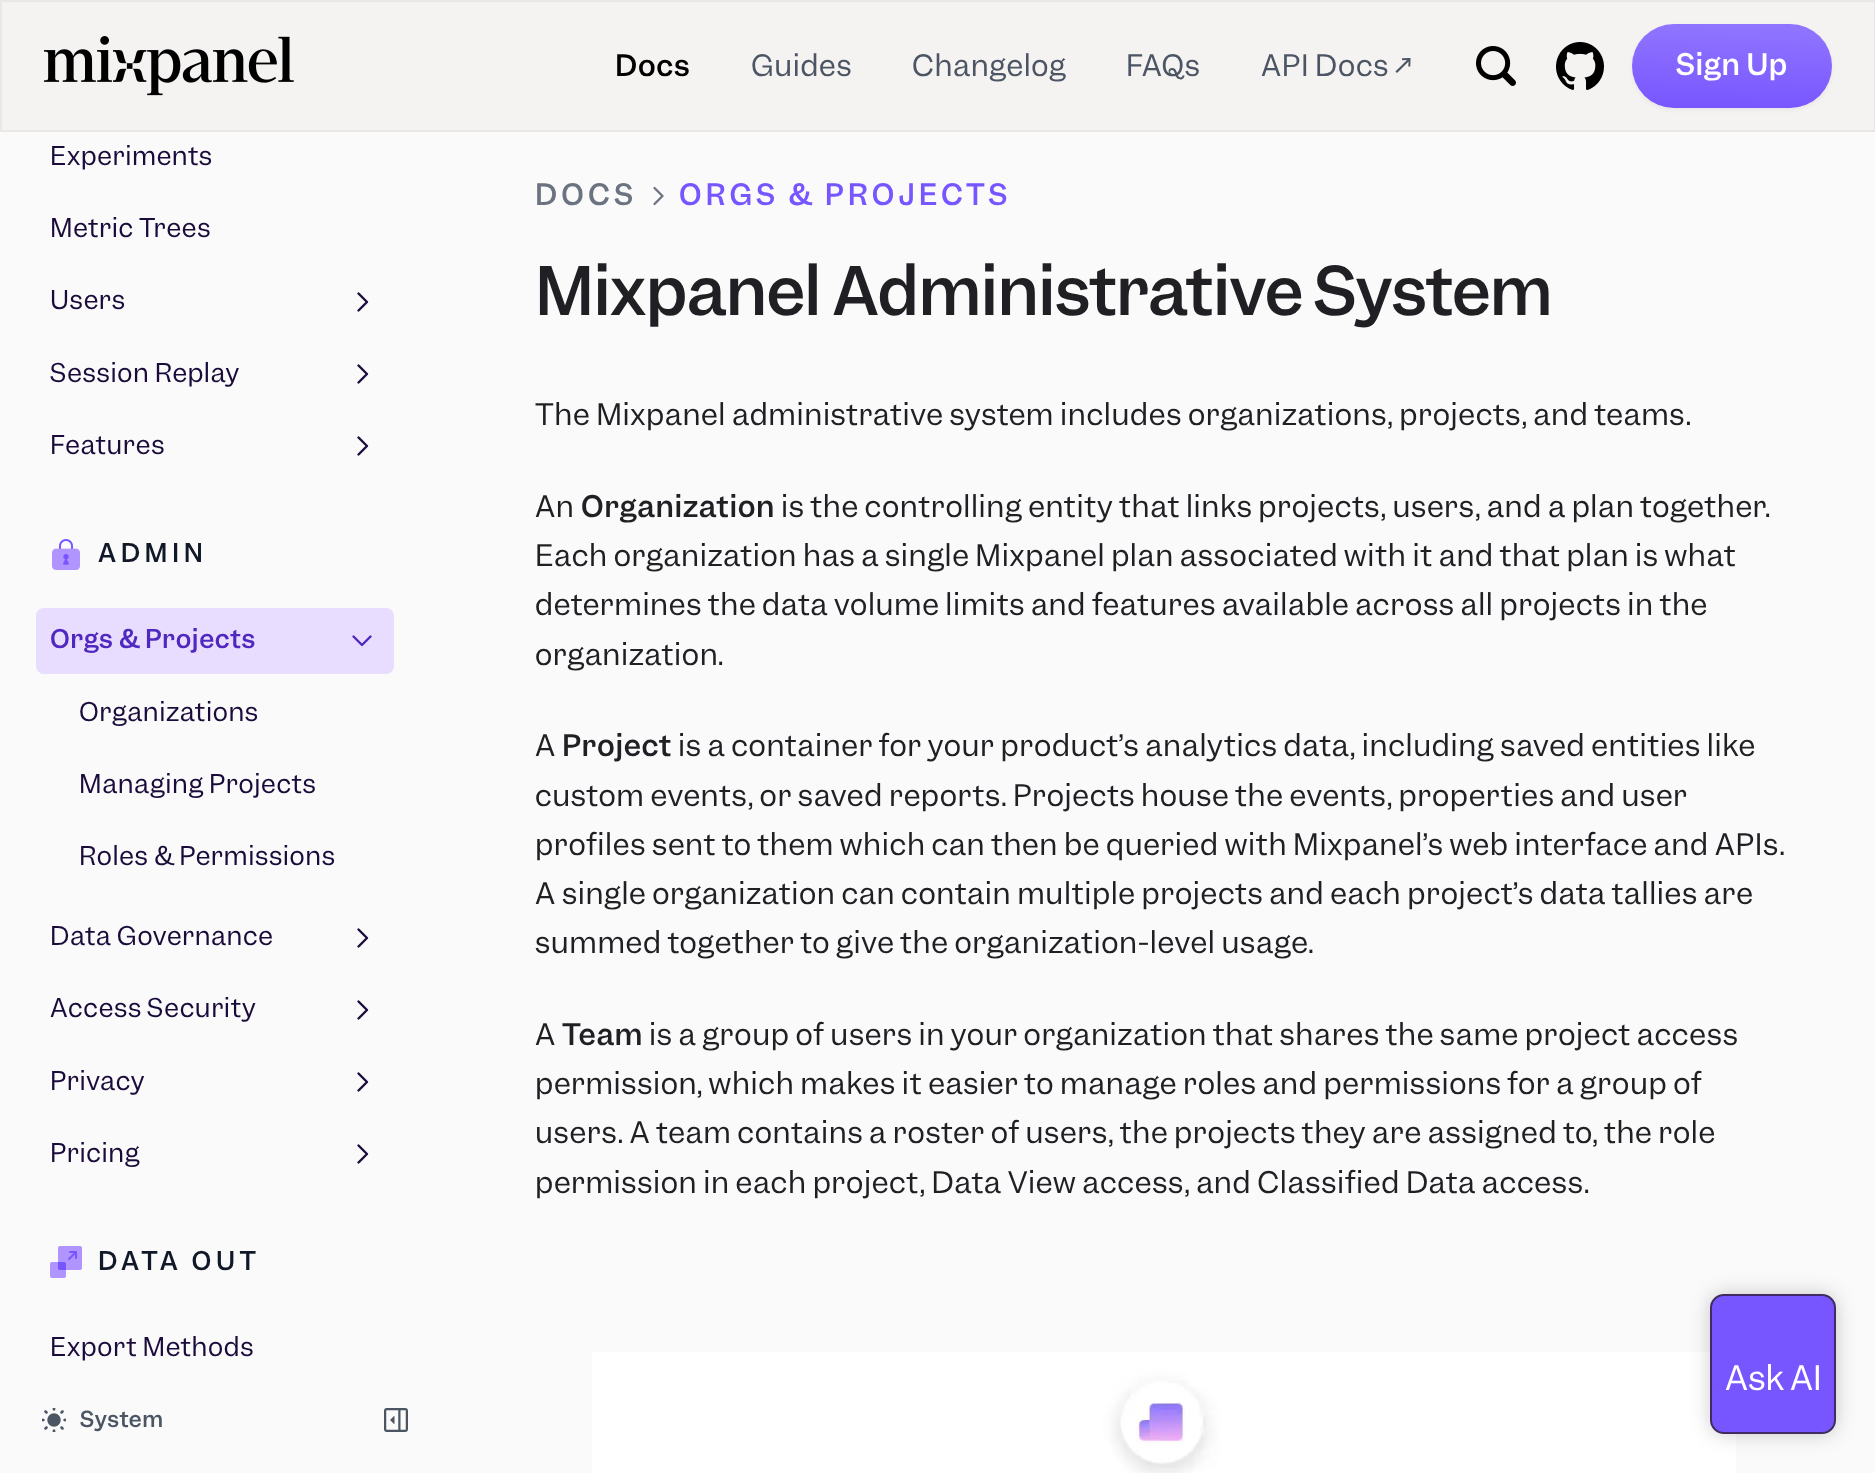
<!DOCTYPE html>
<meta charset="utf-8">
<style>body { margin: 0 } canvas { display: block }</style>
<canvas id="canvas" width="1875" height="1473"></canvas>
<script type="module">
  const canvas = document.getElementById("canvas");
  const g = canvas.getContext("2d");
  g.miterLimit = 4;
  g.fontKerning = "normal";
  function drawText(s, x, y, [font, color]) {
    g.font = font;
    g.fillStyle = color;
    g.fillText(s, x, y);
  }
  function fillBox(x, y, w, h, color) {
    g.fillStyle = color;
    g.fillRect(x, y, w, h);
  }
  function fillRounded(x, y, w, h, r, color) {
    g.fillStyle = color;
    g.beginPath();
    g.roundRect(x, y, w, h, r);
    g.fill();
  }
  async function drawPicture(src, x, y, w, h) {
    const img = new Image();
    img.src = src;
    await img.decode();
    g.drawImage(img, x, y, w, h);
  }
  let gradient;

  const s1 = ["500 28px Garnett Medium", "#000000"];
  const s2 = ["28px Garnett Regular", "#4B5563"];
  const s3 = ["500 28.15px Garnett Medium", "#FFFFFF"];
  const s4 = ["24.6px Garnett Regular", "#1B0B3B"];
  const s5 = ["500 24.6px Garnett Medium", "#111827"];
  const s6 = ["500 24.6px Garnett Medium", "#5028C0"];
  const s7 = ["500 21px Garnett Medium", "#4B5563"];
  const s8 = ["500 28px Garnett Medium", "#6B7280"];
  const s9 = ["500 28px Garnett Medium", "#7856FF"];
  const s10 = ["500 63.4px Garnett Medium", "#201F24"];
  const s11 = ["28.15px Garnett Regular", "#201F24"];
  const s12 = ["500 28.15px Garnett Medium", "#201F24"];
  const s13 = ["32px Garnett Regular", "#FFFFFF"];

  fillBox(0, 0, 1875, 1473, "#FAFAFA");
  g.fillStyle = "#F5F2F2";
  g.beginPath();
  g.rect(1, 1, 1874, 130);
  g.fill();
  g.strokeStyle = "#EAE7E7";
  g.lineWidth = 2;
  g.stroke();
  await drawPicture("pic1.png", 44, 36, 250, 60);
  g.letterSpacing = "0.6px";
  drawText("Docs", 615, 76, s1);
  drawText("Guides", 751, 76, s2);
  drawText("Changelog", 912, 76, s2);
  drawText("FAQs", 1126, 76, s2);
  drawText("API Docs ↗", 1261, 76, s2);
  await drawPicture("pic2.png", 1476, 46, 40, 40);
  await drawPicture("pic3.png", 1556, 42, 48, 48);
  g.fillStyle = "rgba(0, 0, 0, 0.05)";
  g.filter = "blur(2px)";
  g.beginPath();
  g.roundRect(1632, 26, 200, 84, 42);
  g.fill();
  g.filter = "none";
  gradient = g.createLinearGradient(1731, 110, 1733, 22);
  gradient.addColorStop(0.01, "#7856FF");
  gradient.addColorStop(0.97, "#9075FF");
  g.fillStyle = gradient;
  g.beginPath();
  g.roundRect(1632, 24, 200, 84, 42);
  g.fill();
  drawText("Sign Up", 1676, 75, s3);
  drawText("Experiments", 50, 165, s4);
  drawText("Metric Trees", 50, 237, s4);
  drawText("Users", 50, 309, s4);
  g.beginPath();
  g.moveTo(358.5, 293.5);
  g.lineTo(367, 302);
  g.lineTo(358.5, 310.5);
  g.strokeStyle = "#1B0B3B";
  g.lineWidth = 2.4;
  g.lineCap = "round";
  g.lineJoin = "round";
  g.stroke();
  drawText("Session Replay", 50, 382, s4);
  g.beginPath();
  g.moveTo(358.5, 365.5);
  g.lineTo(367, 374);
  g.lineTo(358.5, 382.5);
  g.stroke();
  drawText("Features", 50, 454, s4);
  g.beginPath();
  g.moveTo(358.5, 437.5);
  g.lineTo(367, 446);
  g.lineTo(358.5, 454.5);
  g.stroke();
  await drawPicture("pic4.png", 52, 539, 28, 31);
  g.letterSpacing = "4.5px";
  drawText("ADMIN", 98, 562, s5);
  fillRounded(36, 608, 358, 66, 8, "#E8DDFF");
  g.letterSpacing = "0.6px";
  drawText("Orgs & Projects", 50, 648, s6);
  g.beginPath();
  g.moveTo(370.5, 636.5);
  g.lineTo(362, 645);
  g.lineTo(353.5, 636.5);
  g.strokeStyle = "#5028C0";
  g.stroke();
  drawText("Organizations", 79, 721, s4);
  drawText("Managing Projects", 79, 793, s4);
  drawText("Roles & Permissions", 79, 865, s4);
  drawText("Data Governance", 50, 945, s4);
  g.beginPath();
  g.moveTo(358.5, 929.5);
  g.lineTo(367, 938);
  g.lineTo(358.5, 946.5);
  g.strokeStyle = "#1B0B3B";
  g.stroke();
  drawText("Access Security", 50, 1017, s4);
  g.beginPath();
  g.moveTo(358.5, 1001.5);
  g.lineTo(367, 1010);
  g.lineTo(358.5, 1018.5);
  g.stroke();
  drawText("Privacy", 50, 1090, s4);
  g.beginPath();
  g.moveTo(358.5, 1073.5);
  g.lineTo(367, 1082);
  g.lineTo(358.5, 1090.5);
  g.stroke();
  drawText("Pricing", 50, 1162, s4);
  g.beginPath();
  g.moveTo(358.5, 1145.5);
  g.lineTo(367, 1154);
  g.lineTo(358.5, 1162.5);
  g.stroke();
  await drawPicture("pic5.png", 50, 1246, 32, 32);
  g.letterSpacing = "4.5px";
  drawText("DATA OUT", 98, 1270, s5);
  g.letterSpacing = "0.6px";
  drawText("Export Methods", 50, 1356, s4);
  await drawPicture("pic6.png", 42, 1408, 24, 24);
  drawText("System", 80, 1427, s7);
  await drawPicture("pic7.png", 384, 1408, 24, 24);
  g.letterSpacing = "4px";
  drawText("DOCS", 535, 205, s8);
  g.beginPath();
  g.moveTo(654.5, 188);
  g.lineTo(662.5, 196);
  g.lineTo(654.5, 204);
  g.strokeStyle = "#6B7280";
  g.lineWidth = 2.3;
  g.stroke();
  drawText("ORGS & PROJECTS", 679, 205, s9);
  g.letterSpacing = "-0.6px";
  drawText("Mixpanel Administrative System", 535, 315, s10);
  g.letterSpacing = "0.6px";
  drawText("The Mixpanel administrative system includes organizations, projects, and teams.", 535, 425, s11);
  drawText("An", 535, 517, s11);
  drawText("Organization", 581, 517, s12);
  drawText("is the controlling entity that links projects, users, and a plan together.", 781, 517, s11);
  drawText("Each organization has a single Mixpanel plan associated with it and that plan is what", 535, 566, s11);
  drawText("determines the data volume limits and features available across all projects in the", 535, 615, s11);
  drawText("organization.", 535, 665, s11);
  drawText("A", 535, 756, s11);
  drawText("Project", 562, 756, s12);
  drawText("is a container for your product’s analytics data, including saved entities like", 678, 756, s11);
  drawText("custom events, or saved reports. Projects house the events, properties and user", 535, 806, s11);
  drawText("profiles sent to them which can then be queried with Mixpanel’s web interface and APIs.", 535, 855, s11);
  drawText("A single organization can contain multiple projects and each project’s data tallies are", 535, 904, s11);
  drawText("summed together to give the organization-level usage.", 535, 953, s11);
  drawText("A", 535, 1045, s11);
  drawText("Team", 562, 1045, s12);
  drawText("is a group of users in your organization that shares the same project access", 649, 1045, s11);
  drawText("permission, which makes it easier to manage roles and permissions for a group of", 535, 1094, s11);
  drawText("users. A team contains a roster of users, the projects they are assigned to, the role", 535, 1143, s11);
  drawText("permission in each project, Data View access, and Classified Data access.", 535, 1193, s11);
  await drawPicture("pic8.png", 592, 1352, 1144, 121);
  g.fillStyle = "rgba(0, 0, 0, 0.2)";
  g.filter = "blur(10px)";
  g.beginPath();
  g.roundRect(1710, 1294, 126, 140, 14);
  g.fill();
  g.filter = "none";
  g.fillStyle = "#7856FF";
  g.beginPath();
  g.roundRect(1711, 1295, 124, 138, 13);
  g.fill();
  g.strokeStyle = "#402C60";
  g.lineWidth = 2;
  g.lineJoin = "miter";
  g.stroke();
  g.letterSpacing = "0px";
  drawText("Ask AI", 1725, 1390, s13);
</script>
